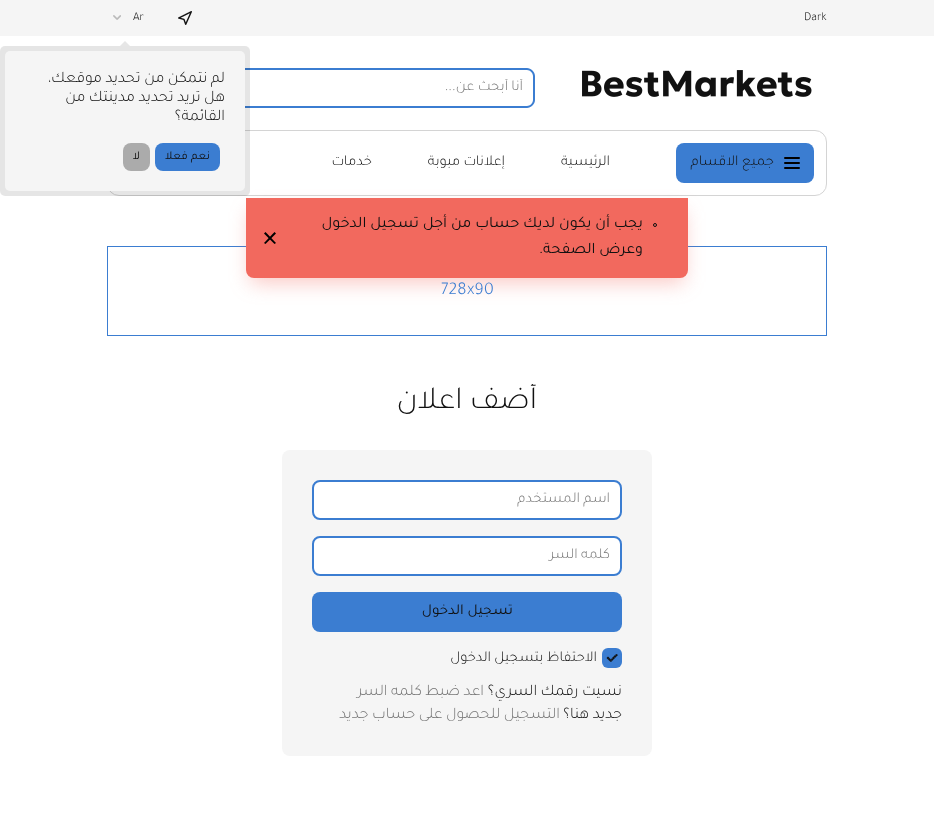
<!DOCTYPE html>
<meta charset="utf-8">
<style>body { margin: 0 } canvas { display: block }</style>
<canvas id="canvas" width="934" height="838"></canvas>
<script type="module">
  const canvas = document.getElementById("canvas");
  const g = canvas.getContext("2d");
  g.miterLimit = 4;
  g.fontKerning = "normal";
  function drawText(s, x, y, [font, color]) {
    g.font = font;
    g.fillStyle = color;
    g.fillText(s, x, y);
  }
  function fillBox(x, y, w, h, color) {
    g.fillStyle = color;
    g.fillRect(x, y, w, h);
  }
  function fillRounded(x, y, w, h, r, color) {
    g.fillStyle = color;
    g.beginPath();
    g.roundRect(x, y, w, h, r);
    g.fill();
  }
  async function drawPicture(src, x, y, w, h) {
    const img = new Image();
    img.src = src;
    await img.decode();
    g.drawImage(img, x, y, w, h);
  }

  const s1 = ["300 12px Tajawal", "#111111"];
  const s2 = ["300 16px Tajawal", "#111111"];
  const s3 = ["12px Tajawal", "#111111"];
  const s4 = ["300 15px Tajawal", "#777777"];
  const s5 = ["300 15px Tajawal", "#111111"];
  const s6 = ["16px Tajawal", "#111111"];
  const s7 = ["300 18px Tajawal", "#3B7DD1"];
  const s8 = ["300 32px Tajawal", "#111111"];
  const s9 = ["15px Tajawal", "#111111"];
  const s10 = ["300 16px Tajawal", "#777777"];

  fillBox(0, 0, 934, 838, "#FFFFFF");
  fillBox(0, 0, 934, 36, "#F5F5F5");
  drawText("Dark", 804, 20, s1);
  await drawPicture("pic1.png", 178, 11, 14, 14);
  drawText("Ar", 133, 20, s1);
  await drawPicture("pic2.png", 113, 15, 8, 5);
  g.fillStyle = "#3B7DD1";
  g.beginPath();
  g.moveTo(245, 68);
  g.lineTo(527, 68);
  g.bezierCurveTo(531, 68, 535, 72, 535, 76);
  g.lineTo(535, 100);
  g.bezierCurveTo(535, 104, 531, 108, 527, 108);
  g.lineTo(245, 108);
  g.closePath();
  g.moveTo(245, 70);
  g.lineTo(527, 70);
  g.bezierCurveTo(530, 70, 533, 73, 533, 76);
  g.lineTo(533, 100);
  g.bezierCurveTo(533, 103, 530, 106, 527, 106);
  g.lineTo(245, 106);
  g.closePath();
  g.fill("evenodd");
  g.beginPath();
  g.roundRect(107.5, 130.5, 719, 65, 11.5);
  g.strokeStyle = "#D4D4D4";
  g.stroke();
  fillRounded(676, 143, 138, 40, 8, "#3B7DD1");
  g.strokeStyle = "#3B7DD1";
  g.strokeRect(107.5, 246.5, 719, 89);
  g.fillStyle = "rgba(242, 105, 94, 0.36)";
  g.filter = "blur(10px)";
  g.beginPath();
  g.roundRect(250, 211, 434, 72, 4);
  g.fill();
  g.filter = "none";
  fillRounded(0, 46, 250, 150, 5, "rgba(0, 0, 0, 0.1)");
  g.fillStyle = "#E6E6E6";
  g.beginPath();
  g.moveTo(130, 46);
  g.lineTo(120, 46);
  g.lineTo(125, 41);
  g.closePath();
  g.fill();
  fillRounded(5, 51, 240, 140, 5, "#F5F5F5");
  g.direction = "rtl";
  drawText("لم نتمكن من تحديد موقعك،", 225, 82, s2);
  drawText("هل تريد تحديد مدينتك من", 225, 101, s2);
  drawText("القائمة؟", 225, 120, s2);
  fillRounded(155, 143, 65, 28, 8, "#3B7DD1");
  drawText("نعم فعلا", 210, 159, s3);
  fillRounded(123, 143, 27, 28, 8, "#ABABAB");
  drawText("لا", 140, 159, s3);
  await drawPicture("pic3.png", 582, 70, 230, 27);
  g.save();
  g.beginPath();
  g.rect(255, 79, 268, 18);
  g.clip();
  drawText("أنا أبحث عن...", 523, 90, s4);
  g.restore();
  fillRounded(784, 162, 16, 2, 1, "#000000");
  fillRounded(784, 157, 16, 2, 1, "#000000");
  fillRounded(784, 167, 16, 2, 1, "#000000");
  drawText("جميع الاقسام", 774, 165, s5);
  drawText("الرئيسية", 610, 165, s5);
  drawText("إعلانات مبوبة", 505, 165, s5);
  drawText("خدمات", 372, 165, s5);
  g.fillStyle = "#F2695E";
  g.beginPath();
  g.roundRect(246, 198, 442, 80, [0, 0, 8, 8]);
  g.fill();
  g.beginPath();
  g.arc(655, 225, 1.5, 0, Math.PI * 2);
  g.strokeStyle = "#111111";
  g.stroke();
  drawText("يجب أن يكون لديك حساب من أجل تسجيل الدخول", 643, 227, s6);
  drawText("وعرض الصفحة.", 643, 253, s6);
  g.fillStyle = "#000000";
  g.beginPath();
  g.moveTo(274.5, 232);
  g.lineTo(276, 233.5);
  g.lineTo(265.5, 244);
  g.lineTo(264, 243);
  g.closePath();
  g.fill();
  g.beginPath();
  g.moveTo(264, 233.5);
  g.lineTo(265.5, 232);
  g.lineTo(276, 243);
  g.lineTo(274.5, 244);
  g.closePath();
  g.fill();
  g.direction = "ltr";
  drawText("728x90", 441, 294, s7);
  g.save();
  g.beginPath();
  g.rect(107, 384, 720, 38);
  g.clip();
  g.direction = "rtl";
  drawText("أضف اعلان", 537, 408, s8);
  g.restore();
  fillRounded(282, 450, 370, 306, 8, "#F5F5F5");
  g.fillStyle = "#FFFFFF";
  g.beginPath();
  g.roundRect(313, 481, 308, 38, 7);
  g.fill();
  g.strokeStyle = "#3B7DD1";
  g.lineWidth = 2;
  g.stroke();
  g.direction = "rtl";
  drawText("اسم المستخدم", 610, 502, s4);
  g.fillStyle = "#FFFFFF";
  g.beginPath();
  g.roundRect(313, 537, 308, 38, 7);
  g.fill();
  g.stroke();
  drawText("كلمه السر", 610, 558, s4);
  fillRounded(312, 592, 310, 40, 8, "#3B7DD1");
  drawText("تسجيل الدخول", 513, 614, s9);
  fillRounded(602, 648, 20, 20, 6, "#3B7DD1");
  g.fillStyle = "#111111";
  g.beginPath();
  g.moveTo(616.5, 654);
  g.lineTo(618, 655);
  g.lineTo(616.5, 656.5);
  g.lineTo(615, 655);
  g.closePath();
  g.fill();
  g.beginPath();
  g.moveTo(615, 655);
  g.lineTo(616.5, 656.5);
  g.lineTo(615, 658);
  g.lineTo(613.5, 656.5);
  g.closePath();
  g.fill();
  g.beginPath();
  g.moveTo(613.5, 656.5);
  g.lineTo(615, 658);
  g.lineTo(613.5, 659.5);
  g.lineTo(612, 658);
  g.closePath();
  g.fill();
  g.beginPath();
  g.moveTo(612, 658);
  g.lineTo(613.5, 659.5);
  g.lineTo(612, 661);
  g.lineTo(611, 659.5);
  g.closePath();
  g.fill();
  g.beginPath();
  g.moveTo(611, 659.5);
  g.lineTo(612, 661);
  g.lineTo(611, 662);
  g.lineTo(609.5, 661);
  g.closePath();
  g.fill();
  g.beginPath();
  g.moveTo(609.5, 658);
  g.lineTo(611, 659.5);
  g.lineTo(609.5, 661);
  g.lineTo(608, 659.5);
  g.closePath();
  g.fill();
  g.beginPath();
  g.moveTo(608, 656.5);
  g.lineTo(609.5, 658);
  g.lineTo(608, 659.5);
  g.lineTo(606.5, 658);
  g.closePath();
  g.fill();
  drawText("الاحتفاظ بتسجيل الدخول", 597, 661, s5);
  drawText("نسيت رقمك السري؟", 622, 695, s2);
  drawText("اعد ضبط كلمه السر", 484, 695, s10);
  drawText("جديد هنا؟", 622, 718, s2);
  drawText("التسجيل للحصول على حساب جديد", 560, 718, s10);
</script>
